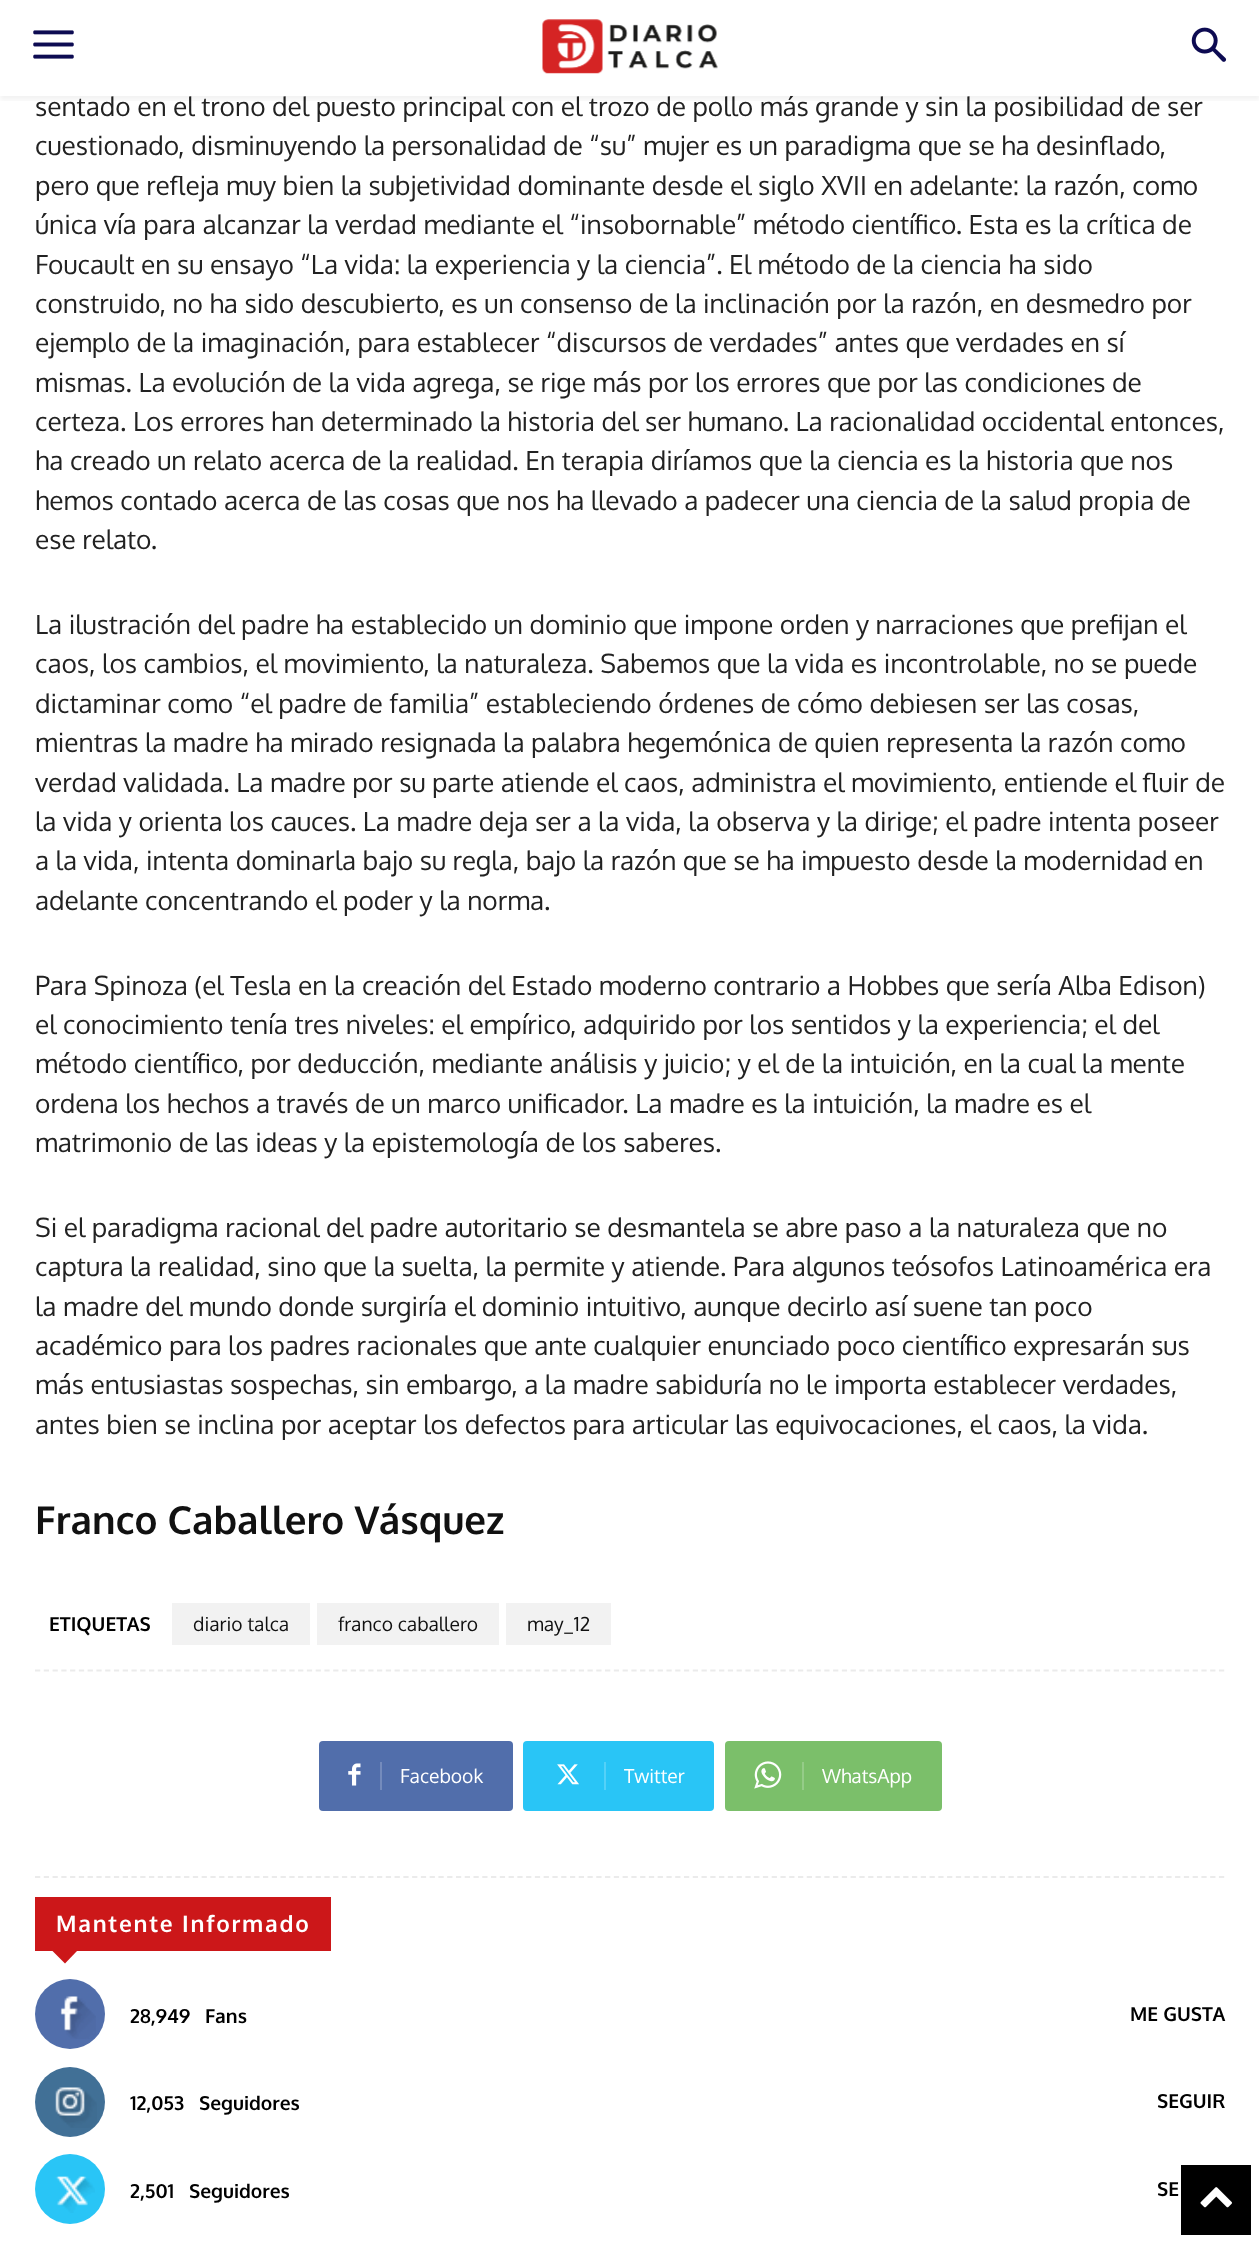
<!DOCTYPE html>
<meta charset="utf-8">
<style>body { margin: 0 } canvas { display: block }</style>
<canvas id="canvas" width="1259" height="2241"></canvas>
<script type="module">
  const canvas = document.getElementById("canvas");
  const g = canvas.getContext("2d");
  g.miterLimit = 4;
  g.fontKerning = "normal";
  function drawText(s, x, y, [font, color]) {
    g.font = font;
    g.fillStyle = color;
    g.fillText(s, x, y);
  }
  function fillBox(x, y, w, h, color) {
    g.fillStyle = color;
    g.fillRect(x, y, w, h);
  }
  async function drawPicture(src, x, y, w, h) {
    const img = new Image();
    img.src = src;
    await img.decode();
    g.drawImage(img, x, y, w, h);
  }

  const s1 = ["26.25px Oxygen", "#222222"];
  const s2 = ["bold 38.5px Oxygen", "#111111"];
  const s3 = ["bold 19.25px Oxygen", "#000000"];
  const s4 = ["19.25px Oxygen", "#111111"];
  const s5 = ["19.25px Oxygen", "#FFFFFF"];
  const s6 = ["bold 22.75px Oxygen", "#FFFFFF"];

  fillBox(0, 0, 1259, 2241, "#FFFFFF");
  await drawPicture("pic1.png", 33, 30, 41, 29);
  await drawPicture("pic2.png", 542, 19, 176, 55);
  await drawPicture("pic3.png", 1191, 27, 36, 35);
  drawText("sentado en el trono del puesto principal con el trozo de pollo más grande y sin la posibilidad de ser", 35, 116, s1);
  fillBox(790, 95, 4, 1, "rgba(255, 255, 255, 0.98)");
  g.save();
  g.beginPath();
  g.rect(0, 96, 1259, 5);
  g.clip();
  g.fillStyle = "rgba(0, 0, 0, 0.05)";
  g.filter = "blur(2.5px)";
  g.beginPath();
  g.rect(0, 4, 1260, 96);
  g.fill();
  g.filter = "none";
  g.restore();
  drawText("cuestionado, disminuyendo la personalidad de “su” mujer es un paradigma que se ha desinflado,", 35, 155, s1);
  drawText("pero que refleja muy bien la subjetividad dominante desde el siglo XVII en adelante: la razón, como", 35, 195, s1);
  drawText("única vía para alcanzar la verdad mediante el “insobornable” método científico. Esta es la crítica de", 35, 234, s1);
  drawText("Foucault en su ensayo “La vida: la experiencia y la ciencia”. El método de la ciencia ha sido", 35, 274, s1);
  drawText("construido, no ha sido descubierto, es un consenso de la inclinación por la razón, en desmedro por", 35, 313, s1);
  drawText("ejemplo de la imaginación, para establecer “discursos de verdades” antes que verdades en sí", 35, 352, s1);
  drawText("mismas. La evolución de la vida agrega, se rige más por los errores que por las condiciones de", 35, 392, s1);
  drawText("certeza. Los errores han determinado la historia del ser humano. La racionalidad occidental entonces,", 35, 431, s1);
  drawText("ha creado un relato acerca de la realidad. En terapia diríamos que la ciencia es la historia que nos", 35, 470, s1);
  drawText("hemos contado acerca de las cosas que nos ha llevado a padecer una ciencia de la salud propia de", 35, 510, s1);
  drawText("ese relato.", 35, 549, s1);
  drawText("La ilustración del padre ha establecido un dominio que impone orden y narraciones que prefijan el", 35, 634, s1);
  drawText("caos, los cambios, el movimiento, la naturaleza. Sabemos que la vida es incontrolable, no se puede", 35, 673, s1);
  drawText("dictaminar como “el padre de familia” estableciendo órdenes de cómo debiesen ser las cosas,", 35, 713, s1);
  drawText("mientras la madre ha mirado resignada la palabra hegemónica de quien representa la razón como", 35, 752, s1);
  drawText("verdad validada. La madre por su parte atiende el caos, administra el movimiento, entiende el fluir de", 35, 792, s1);
  drawText("la vida y orienta los cauces. La madre deja ser a la vida, la observa y la dirige; el padre intenta poseer", 35, 831, s1);
  drawText("a la vida, intenta dominarla bajo su regla, bajo la razón que se ha impuesto desde la modernidad en", 35, 870, s1);
  drawText("adelante concentrando el poder y la norma.", 35, 910, s1);
  drawText("Para Spinoza (el Tesla en la creación del Estado moderno contrario a Hobbes que sería Alba Edison)", 35, 995, s1);
  drawText("el conocimiento tenía tres niveles: el empírico, adquirido por los sentidos y la experiencia; el del", 35, 1034, s1);
  drawText("método científico, por deducción, mediante análisis y juicio; y el de la intuición, en la cual la mente", 35, 1073, s1);
  drawText("ordena los hechos a través de un marco unificador. La madre es la intuición, la madre es el", 35, 1113, s1);
  drawText("matrimonio de las ideas y la epistemología de los saberes.", 35, 1152, s1);
  drawText("Si el paradigma racional del padre autoritario se desmantela se abre paso a la naturaleza que no", 35, 1237, s1);
  drawText("captura la realidad, sino que la suelta, la permite y atiende. Para algunos teósofos Latinoamérica era", 35, 1276, s1);
  drawText("la madre del mundo donde surgiría el dominio intuitivo, aunque decirlo así suene tan poco", 35, 1316, s1);
  drawText("académico para los padres racionales que ante cualquier enunciado poco científico expresarán sus", 35, 1355, s1);
  drawText("más entusiastas sospechas, sin embargo, a la madre sabiduría no le importa establecer verdades,", 35, 1394, s1);
  drawText("antes bien se inclina por aceptar los defectos para articular las equivocaciones, el caos, la vida.", 35, 1434, s1);
  drawText("Franco Caballero Vásquez", 35, 1534, s2);
  drawText("ETIQUETAS", 49, 1631, s3);
  fillBox(172, 1603, 138, 42, "#F2F2F2");
  drawText("diario talca", 193, 1631, s4);
  fillBox(317, 1603, 182, 42, "#F2F2F2");
  drawText("franco caballero", 338, 1631, s4);
  fillBox(506, 1603, 105, 42, "#F2F2F2");
  drawText("may_12", 527, 1631, s4);
  g.beginPath();
  g.moveTo(35, 1670.5);
  g.lineTo(1225, 1670.5);
  g.strokeStyle = "#EBEBEB";
  g.lineWidth = 1.8;
  g.setLineDash([5.25, 3.52]);
  g.stroke();
  g.fillStyle = "#516EAB";
  g.beginPath();
  g.roundRect(380, 1741, 133, 70, [0, 4, 4, 0]);
  g.fill();
  g.beginPath();
  g.roundRect(319, 1741, 71, 70, [4, 0, 0, 4]);
  g.fill();
  await drawPicture("pic4.png", 348, 1763, 13, 23);
  fillBox(380, 1762, 2, 28, "#748BBC");
  drawText("Facebook", 400, 1783, s5);
  g.fillStyle = "#29C5F6";
  g.beginPath();
  g.roundRect(604, 1741, 110, 70, [0, 4, 4, 0]);
  g.fill();
  g.beginPath();
  g.roundRect(523, 1741, 91, 70, [4, 0, 0, 4]);
  g.fill();
  await drawPicture("pic5.png", 557, 1764, 22, 21);
  fillBox(604, 1762, 2, 28, "#54D1F8");
  drawText("Twitter", 624, 1783, s5);
  g.fillStyle = "#7BBF6A";
  g.beginPath();
  g.roundRect(802, 1741, 140, 70, [0, 4, 4, 0]);
  g.fill();
  g.beginPath();
  g.roundRect(725, 1741, 87, 70, [4, 0, 0, 4]);
  g.fill();
  await drawPicture("pic6.png", 754, 1761, 28, 28);
  fillBox(802, 1762, 2, 28, "#95CC88");
  drawText("WhatsApp", 822, 1783, s5);
  g.beginPath();
  g.moveTo(35, 1877);
  g.lineTo(1225, 1877);
  g.stroke();
  fillBox(35, 1897, 296, 54, "#CC1719");
  g.letterSpacing = "1.75px";
  drawText("Mantente Informado", 56, 1932, s6);
  g.fillStyle = "#CC1719";
  g.beginPath();
  g.moveTo(52.5, 1951);
  g.lineTo(77, 1951);
  g.lineTo(65, 1963.5);
  g.closePath();
  g.fill();
  g.fillStyle = "#516EAB";
  g.beginPath();
  g.arc(70, 2014, 35, 0, Math.PI * 2);
  g.fill();
  await drawPicture("pic7.png", 60, 1996, 36, 43);
  g.letterSpacing = "0px";
  drawText("28,949", 130, 2023, s3);
  drawText("Fans", 205, 2023, s3);
  drawText("ME GUSTA", 1130, 2021, s3);
  g.fillStyle = "#417096";
  g.beginPath();
  g.arc(70, 2102, 35, 0, Math.PI * 2);
  g.fill();
  await drawPicture("pic8.png", 55, 2087, 42, 41);
  drawText("12,053", 130, 2110, s3);
  drawText("Seguidores", 199, 2110, s3);
  drawText("SEGUIR", 1157, 2108, s3);
  g.fillStyle = "#29C5F6";
  g.beginPath();
  g.arc(70, 2189, 35, 0, Math.PI * 2);
  g.fill();
  await drawPicture("pic9.png", 55, 2176, 40, 37);
  drawText("2,501", 130, 2198, s3);
  drawText("Seguidores", 189, 2198, s3);
  drawText("SE", 1157, 2196, s3);
  fillBox(1181, 2165, 70, 70, "#000000");
  await drawPicture("pic10.png", 1200, 2187, 32, 21);
</script>
